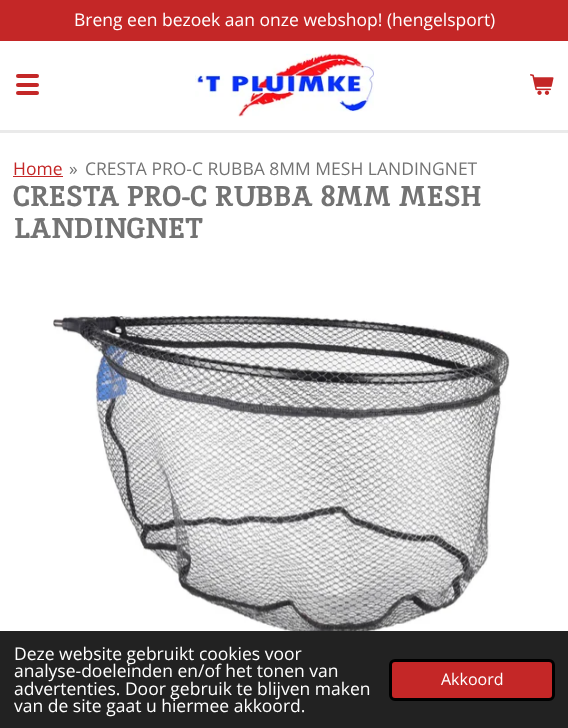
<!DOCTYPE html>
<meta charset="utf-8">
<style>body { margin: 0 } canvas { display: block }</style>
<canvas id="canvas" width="568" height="728"></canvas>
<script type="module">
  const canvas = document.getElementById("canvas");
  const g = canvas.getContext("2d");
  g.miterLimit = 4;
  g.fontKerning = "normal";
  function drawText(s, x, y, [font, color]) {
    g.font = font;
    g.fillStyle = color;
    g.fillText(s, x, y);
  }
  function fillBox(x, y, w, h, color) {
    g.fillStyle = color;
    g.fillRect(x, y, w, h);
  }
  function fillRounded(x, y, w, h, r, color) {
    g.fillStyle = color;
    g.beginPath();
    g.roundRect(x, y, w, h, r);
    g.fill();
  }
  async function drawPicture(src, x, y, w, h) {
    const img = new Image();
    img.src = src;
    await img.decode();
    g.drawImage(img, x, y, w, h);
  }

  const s1 = ["17.5px Open Sans", "#FFFFFF"];
  const s2 = ["17.5px Open Sans", "#C42727"];
  const s3 = ["17.5px Open Sans", "#737373"];
  const s4 = ["bold 28.75px Inika", "#737373"];
  const s5 = ["16px Open Sans", "#FFFFFF"];

  fillBox(0, 0, 568, 728, "#FFFFFF");
  fillBox(0, 0, 568, 41, "#C42727");
  drawText("Breng een bezoek aan onze webshop! (hengelsport)", 74, 26, s1);
  fillRounded(16, 83, 23, 4, 2, "#C42727");
  fillRounded(16, 74, 23, 4, 2, "#C42727");
  fillRounded(16, 91, 23, 4, 2, "#C42727");
  await drawPicture("pic1.png", 195, 53, 179, 64);
  await drawPicture("pic2.png", 530, 74, 24, 21);
  fillBox(0, 130, 568, 3, "#EAEAEA");
  drawText("Home", 13, 175, s2);
  fillBox(13, 176, 50, 1, "#C42727");
  drawText("»", 69, 175, s3);
  drawText("CRESTA PRO-C RUBBA 8MM MESH LANDINGNET", 85, 175, s3);
  drawText("CRESTA PRO-C RUBBA 8MM MESH", 13, 206, s4);
  drawText("LANDINGNET", 13, 238, s4);
  await drawPicture("pic3.png", 53, 315, 457, 316);
  fillBox(0, 631, 568, 97, "#222222");
  drawText("Deze website gebruikt cookies voor", 14, 660, s1);
  drawText("analyse-doeleinden en/of het tonen van", 14, 677, s1);
  drawText("advertenties. Door gebruik te blijven maken", 14, 695, s1);
  drawText("van de site gaat u hiermee akkoord.", 14, 712, s1);
  g.fillStyle = "#C42727";
  g.beginPath();
  g.roundRect(390.5, 660.5, 163, 39, 4.5);
  g.fill();
  g.strokeStyle = "#000000";
  g.lineWidth = 3;
  g.stroke();
  drawText("Akkoord", 441, 685, s5);
</script>
